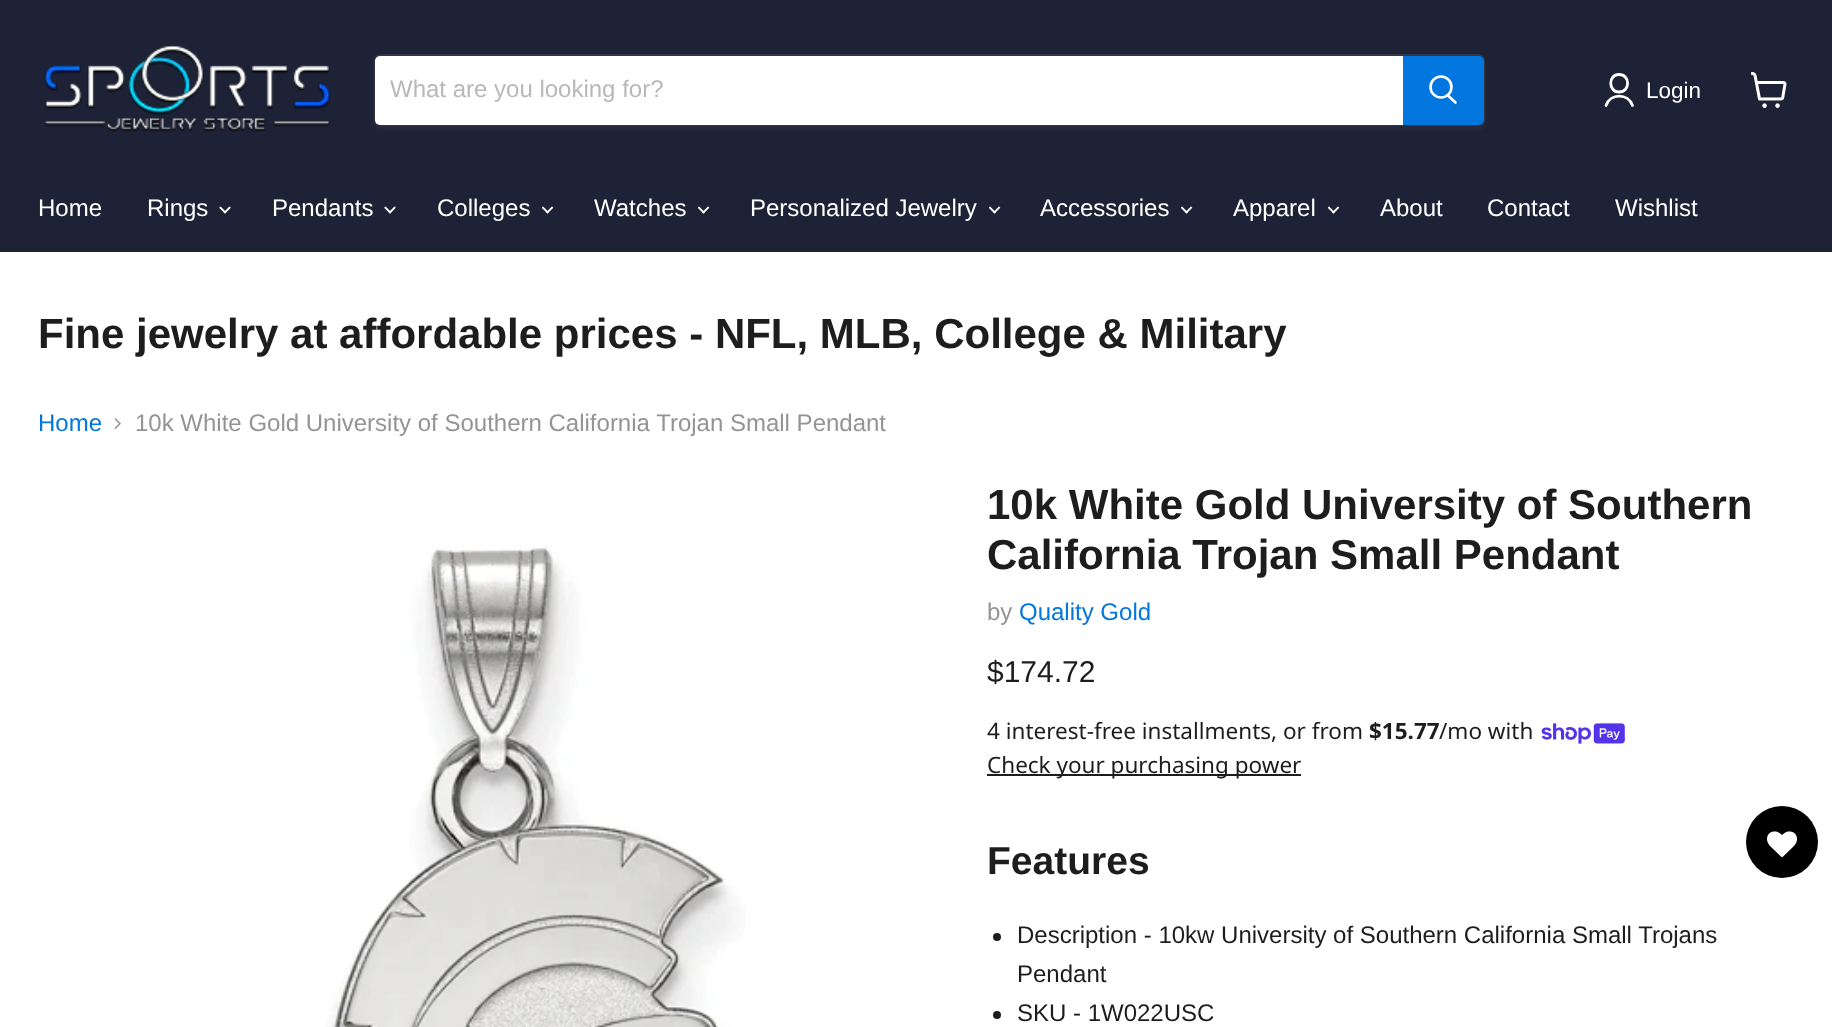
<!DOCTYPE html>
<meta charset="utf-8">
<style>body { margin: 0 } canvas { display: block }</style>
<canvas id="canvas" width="1832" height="1027"></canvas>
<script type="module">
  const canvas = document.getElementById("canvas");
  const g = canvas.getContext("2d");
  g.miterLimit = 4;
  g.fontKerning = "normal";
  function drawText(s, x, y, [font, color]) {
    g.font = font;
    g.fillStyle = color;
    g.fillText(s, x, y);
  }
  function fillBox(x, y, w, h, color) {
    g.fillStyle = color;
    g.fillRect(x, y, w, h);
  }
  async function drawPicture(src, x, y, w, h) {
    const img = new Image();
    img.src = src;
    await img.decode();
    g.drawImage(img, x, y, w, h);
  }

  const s1 = ["24px Liberation Sans", "#B8B8B8"];
  const s2 = ["22.5px Liberation Sans", "#FFFFFF"];
  const s3 = ["24px Liberation Sans", "#FFFFFF"];
  const s4 = ["bold 42px Liberation Sans", "#1D1D1D"];
  const s5 = ["24px Liberation Sans", "#0076DE"];
  const s6 = ["24px Liberation Sans", "#949494"];
  const s7 = ["30px Liberation Sans", "#1D1D1D"];
  const s8 = ["22.5px Noto Sans", "#1D1D1D"];
  const s9 = ["bold 22.5px Noto Sans", "#1D1D1D"];
  const s10 = ["bold 39px Liberation Sans", "#1D1D1D"];
  const s11 = ["24px Liberation Sans", "#1D1D1D"];

  fillBox(0, 0, 1832, 1027, "#FFFFFF");
  fillBox(0, 0, 1832, 252, "#1D2236");
  await drawPicture("pic1.png", 44, 45, 286, 87);
  g.fillStyle = "rgba(128, 128, 128, 0.11)";
  g.filter = "blur(2px)";
  g.beginPath();
  g.roundRect(374, 57, 1111, 72, 6);
  g.fill();
  g.filter = "none";
  g.beginPath();
  g.roundRect(375, 55, 1109, 70, 5);
  g.strokeStyle = "#313545";
  g.lineWidth = 2;
  g.stroke();
  g.fillStyle = "#FFFFFF";
  g.beginPath();
  g.roundRect(375, 56, 1028, 69, [5, 0, 0, 5]);
  g.fill();
  drawText("What are you looking for?", 390, 97, s1);
  g.fillStyle = "#0076DE";
  g.beginPath();
  g.roundRect(1404, 57, 79, 67, [0, 4, 4, 0]);
  g.fill();
  g.strokeStyle = "#0076DE";
  g.stroke();
  g.beginPath();
  g.moveTo(1455.5, 102.5);
  g.lineTo(1448, 95.5);
  g.strokeStyle = "#FFFFFF";
  g.lineWidth = 2.6;
  g.lineCap = "round";
  g.stroke();
  g.beginPath();
  g.arc(1441, 87, 10.5, 0, Math.PI * 2);
  g.stroke();
  g.beginPath();
  g.moveTo(1619, 92);
  g.bezierCurveTo(1630.5, 92, 1630.5, 74.5, 1619, 74.5);
  g.bezierCurveTo(1608, 74.5, 1608, 92, 1619, 92);
  g.closePath();
  g.moveTo(1632.5, 105.5);
  g.bezierCurveTo(1628, 93, 1610.5, 93, 1606, 105.5);
  g.lineWidth = 2.8;
  g.lineJoin = "round";
  g.stroke();
  drawText("Login", 1646, 98, s2);
  await drawPicture("pic2.png", 1751, 72, 36, 36);
  drawText("Home", 38, 216, s3);
  drawText("Rings", 147, 216, s3);
  await drawPicture("pic3.png", 219, 206, 12, 8);
  drawText("Pendants", 272, 216, s3);
  await drawPicture("pic3.png", 384, 206, 12, 8);
  drawText("Colleges", 437, 216, s3);
  await drawPicture("pic4.png", 542, 206, 12, 8);
  drawText("Watches", 594, 216, s3);
  await drawPicture("pic4.png", 698, 206, 12, 8);
  drawText("Personalized Jewelry", 750, 216, s3);
  await drawPicture("pic4.png", 989, 206, 12, 8);
  drawText("Accessories", 1040, 216, s3);
  await drawPicture("pic4.png", 1181, 206, 12, 8);
  drawText("Apparel", 1233, 216, s3);
  await drawPicture("pic4.png", 1328, 206, 12, 8);
  drawText("About", 1380, 216, s3);
  drawText("Contact", 1487, 216, s3);
  drawText("Wishlist", 1615, 216, s3);
  drawText("Fine jewelry at affordable prices - NFL, MLB, College & Military", 38, 348, s4);
  drawText("Home", 38, 431, s5);
  await drawPicture("pic5.png", 114, 418, 7, 11);
  drawText("10k White Gold University of Southern California Trojan Small Pendant", 135, 431, s6);
  await drawPicture("pic6.png", 326, 545, 420, 482);
  drawText("10k White Gold University of Southern", 987, 519, s4);
  drawText("California Trojan Small Pendant", 987, 569, s4);
  drawText("by", 987, 620, s6);
  drawText("Quality Gold", 1019, 620, s5);
  drawText("$174.72", 987, 682, s7);
  drawText("4 interest-free installments, or from", 987, 739, s8);
  drawText("$15.77", 1369, 739, s9);
  drawText("/mo with", 1439, 739, s8);
  await drawPicture("pic7.png", 1541, 723, 84, 21);
  fillBox(987, 774, 314, 2, "#1D1D1D");
  drawText("Check your purchasing power", 987, 773, s8);
  drawText("Features", 987, 874, s10);
  g.beginPath();
  g.arc(997, 937, 4, 0, Math.PI * 2);
  g.fill();
  drawText("Description - 10kw University of Southern California Small Trojans", 1017, 943, s11);
  drawText("Pendant", 1017, 982, s11);
  g.beginPath();
  g.arc(997, 1015, 4, 0, Math.PI * 2);
  g.fill();
  drawText("SKU - 1W022USC", 1017, 1021, s11);
  g.fillStyle = "#000000";
  g.beginPath();
  g.arc(1782, 842, 36, 0, Math.PI * 2);
  g.fill();
  await drawPicture("pic8.png", 1767, 831, 30, 27);
</script>
